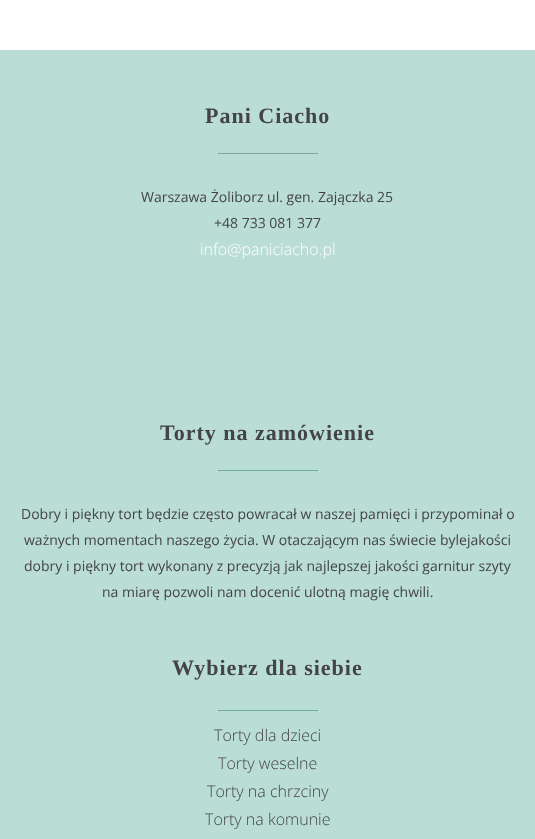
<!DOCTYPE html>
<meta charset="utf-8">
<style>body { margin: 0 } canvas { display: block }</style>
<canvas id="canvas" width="535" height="839"></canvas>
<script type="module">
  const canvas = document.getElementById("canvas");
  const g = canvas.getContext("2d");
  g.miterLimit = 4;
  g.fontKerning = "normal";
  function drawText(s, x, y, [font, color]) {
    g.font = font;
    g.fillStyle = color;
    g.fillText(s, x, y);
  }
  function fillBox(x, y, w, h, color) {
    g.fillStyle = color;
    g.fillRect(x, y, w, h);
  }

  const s1 = ["bold 22px Liberation Serif", "#444444"];
  const s2 = ["14px Open Sans", "#444444"];
  const s3 = ["300 16px Open Sans", "#FFFFFF"];
  const s4 = ["300 16px Open Sans", "#444444"];

  fillBox(0, 0, 535, 839, "#FFFFFF");
  fillBox(0, 50, 535, 789, "#BADDD6");
  g.letterSpacing = "1px";
  drawText("Pani Ciacho", 205, 123, s1);
  fillBox(218, 153, 100, 1, "#85A19B");
  g.letterSpacing = "0px";
  drawText("Warszawa Żoliborz ul. gen. Zajączka 25", 141, 202, s2);
  drawText("+48 733 081 377", 214, 228, s2);
  drawText("info@paniciacho.pl", 200, 255, s3);
  g.letterSpacing = "1px";
  drawText("Torty na zamówienie", 160, 440, s1);
  fillBox(218, 470, 100, 1, "#69A99F");
  g.letterSpacing = "0px";
  drawText("Dobry i piękny tort będzie często powracał w naszej pamięci i przypominał o", 21, 519, s2);
  drawText("ważnych momentach naszego życia. W otaczającym nas świecie bylejakości", 24, 545, s2);
  drawText("dobry i piękny tort wykonany z precyzją jak najlepszej jakości garnitur szyty", 24, 571, s2);
  drawText("na miarę pozwoli nam docenić ulotną magię chwili.", 102, 597, s2);
  g.letterSpacing = "1px";
  drawText("Wybierz dla siebie", 172, 675, s1);
  fillBox(218, 710, 100, 1, "#69A99F");
  g.letterSpacing = "0px";
  drawText("Torty dla dzieci", 214, 741, s4);
  drawText("Torty weselne", 218, 769, s4);
  drawText("Torty na chrzciny", 207, 797, s4);
  drawText("Torty na komunie", 205, 825, s4);
</script>
